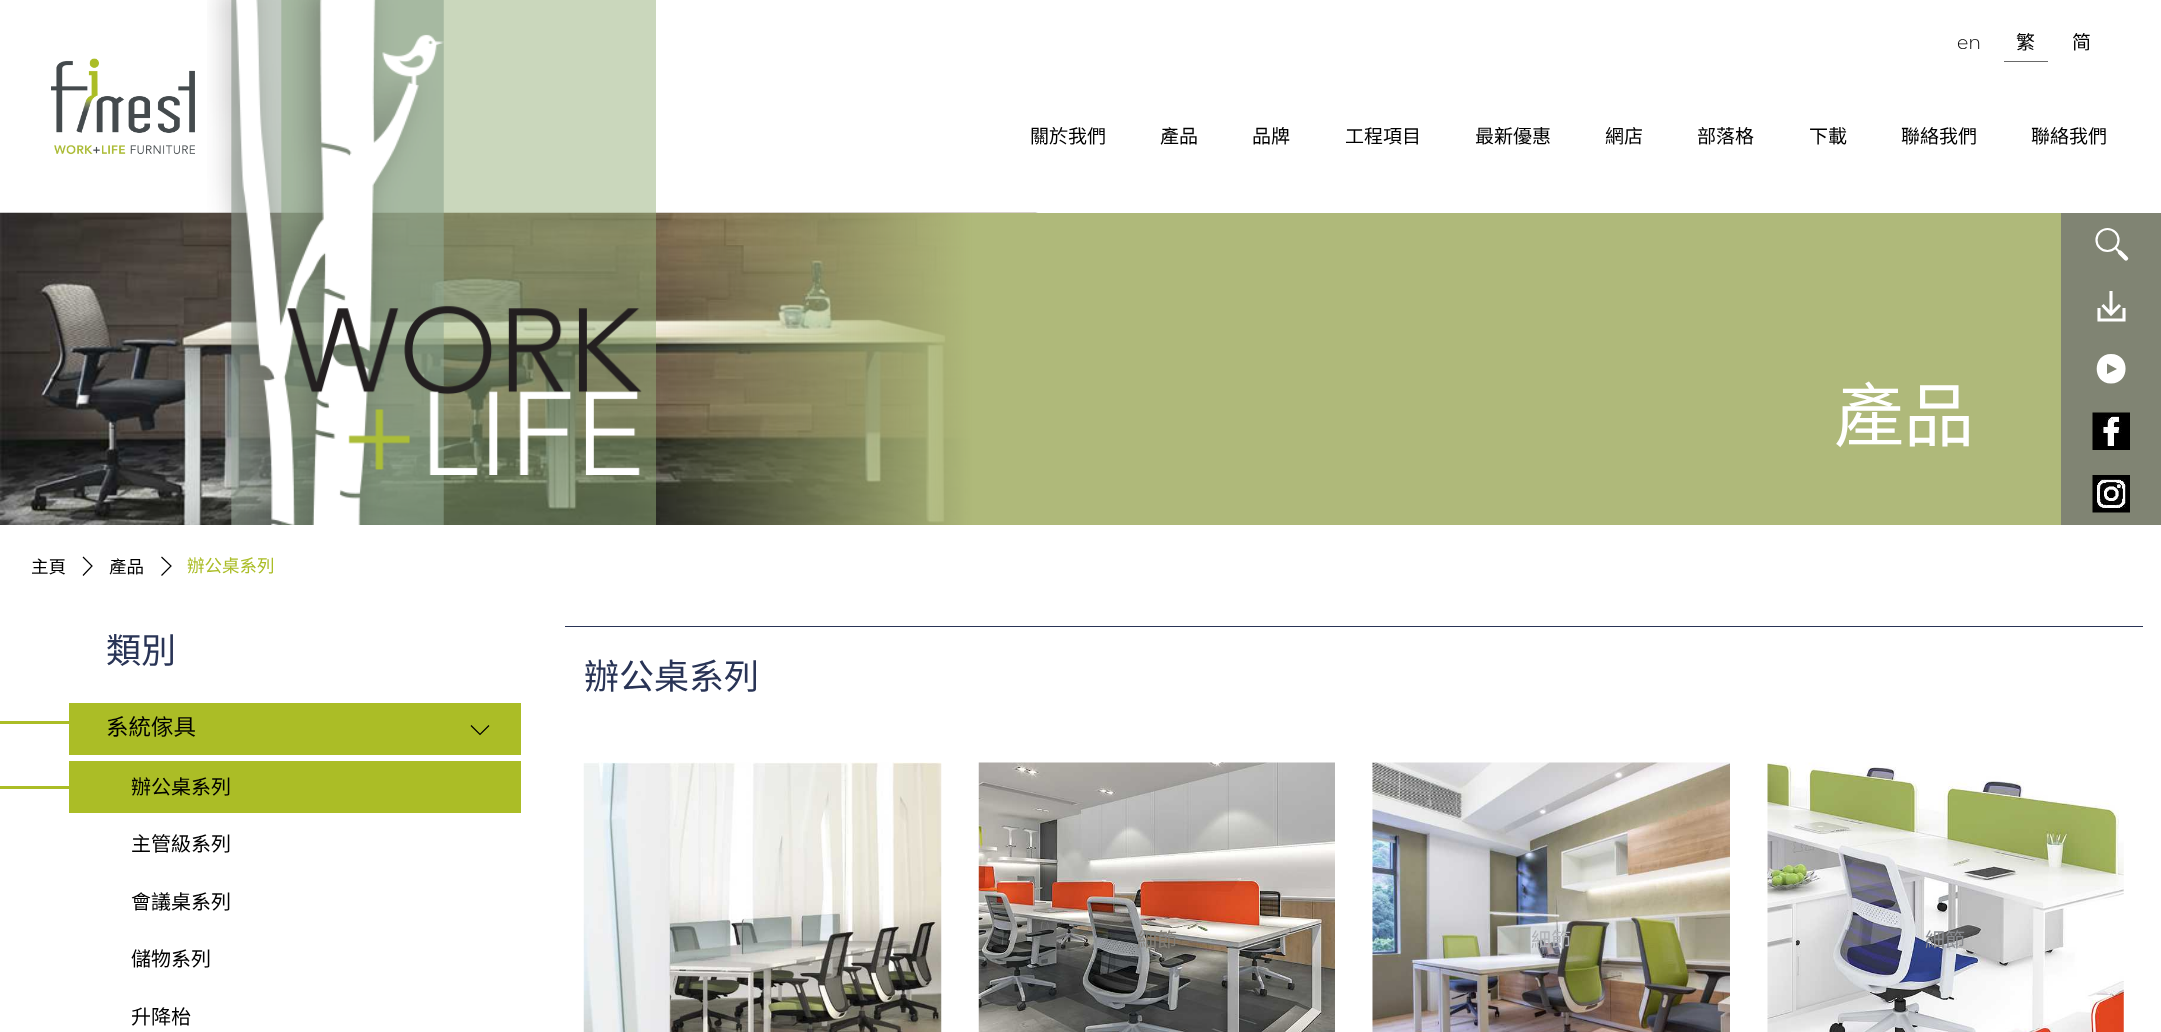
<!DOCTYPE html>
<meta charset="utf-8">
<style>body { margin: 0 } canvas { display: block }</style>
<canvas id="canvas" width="2161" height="1032"></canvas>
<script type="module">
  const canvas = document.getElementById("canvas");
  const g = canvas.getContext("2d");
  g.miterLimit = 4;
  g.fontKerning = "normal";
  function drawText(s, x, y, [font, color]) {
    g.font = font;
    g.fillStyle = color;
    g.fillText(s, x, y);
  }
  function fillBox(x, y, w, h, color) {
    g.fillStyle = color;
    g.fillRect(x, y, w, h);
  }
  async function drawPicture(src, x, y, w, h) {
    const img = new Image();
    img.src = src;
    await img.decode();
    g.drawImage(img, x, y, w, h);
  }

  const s1 = ["300 19px Montserrat", "#000000"];
  const s2 = ["19px Noto Sans CJK HK", "#000000"];
  const s3 = ["70px Noto Sans CJK HK", "#FFFFFF"];
  const s4 = ["17.5px Noto Sans CJK HK", "#000000"];
  const s5 = ["17.5px Noto Sans CJK HK", "#ABBD27"];
  const s6 = ["35px Noto Sans CJK HK", "#293456"];
  const s7 = ["22.5px Noto Sans CJK HK", "#000000"];
  const s8 = ["20px Noto Sans CJK HK", "#000000"];
  const s9 = ["20px Noto Sans CJK HK", "#848079"];
  const s10 = ["20px Noto Sans CJK HK", "#AFB1B5"];
  const s11 = ["20px Noto Sans CJK HK", "#898B90"];

  fillBox(0, 0, 2161, 1032, "#FFFFFF");
  await drawPicture("pic4.png", 0, 212, 1044, 313);
  await drawPicture("pic1.png", 207, 0, 449, 525);
  await drawPicture("pic2.png", 287, 306, 355, 169);
  drawText("en", 1957, 49, s1);
  fillBox(2004, 61, 44, 1, "#696969");
  drawText("繁", 2016, 49, s2);
  drawText("简", 2072, 49, s2);
  await drawPicture("pic3.png", 51, 58, 144, 97);
  drawText("關於我們", 1030, 143, s2);
  drawText("產品", 1160, 143, s2);
  drawText("品牌", 1252, 143, s2);
  drawText("工程項目", 1345, 143, s2);
  drawText("最新優惠", 1475, 143, s2);
  drawText("網店", 1605, 143, s2);
  drawText("部落格", 1697, 143, s2);
  drawText("下載", 1809, 143, s2);
  drawText("聯絡我們", 1901, 143, s2);
  drawText("聯絡我們", 2031, 143, s2);
  fillBox(973, 213, 1088, 312, "#AFB97A");
  fillBox(2061, 213, 100, 312, "#808473");
  g.beginPath();
  g.arc(2107.5, 240, 11, 0, Math.PI * 2);
  g.strokeStyle = "#FFFFFF";
  g.lineWidth = 2.2;
  g.stroke();
  g.beginPath();
  g.moveTo(2115, 247.5);
  g.lineTo(2120, 252.5);
  g.stroke();
  g.beginPath();
  g.moveTo(2126, 258.5);
  g.lineTo(2120, 252.5);
  g.lineWidth = 4.4;
  g.lineCap = "round";
  g.stroke();
  g.beginPath();
  g.moveTo(2124, 308);
  g.lineTo(2124, 320);
  g.lineTo(2099, 320);
  g.lineTo(2099, 308);
  g.moveTo(2111, 314);
  g.lineTo(2111, 291);
  g.moveTo(2102.5, 305);
  g.lineTo(2111, 314);
  g.lineTo(2120, 305);
  g.lineWidth = 3.1;
  g.lineCap = "butt";
  g.stroke();
  g.fillStyle = "#FFFFFF";
  g.beginPath();
  g.moveTo(2111, 354);
  g.bezierCurveTo(2092, 354, 2092, 383.5, 2111, 383.5);
  g.bezierCurveTo(2130.5, 383.5, 2130.5, 354, 2111, 354);
  g.closePath();
  g.moveTo(2107, 374);
  g.lineTo(2107, 363.5);
  g.lineTo(2117, 369);
  g.closePath();
  g.fill();
  await drawPicture("pic5.png", 2092, 412, 38, 38);
  await drawPicture("pic6.png", 2092, 475, 38, 38);
  drawText("產品", 1834, 441, s3);
  drawText("主頁", 31, 573, s4);
  g.beginPath();
  g.moveTo(83, 575.5);
  g.lineTo(92, 566);
  g.lineTo(83, 557);
  g.strokeStyle = "#000000";
  g.lineWidth = 1.2;
  g.stroke();
  drawText("產品", 109, 573, s4);
  g.beginPath();
  g.moveTo(161.5, 575.5);
  g.lineTo(171, 566);
  g.lineTo(161.5, 557);
  g.stroke();
  drawText("辦公桌系列", 187, 572, s5);
  drawText("類別", 106, 663, s6);
  fillBox(69, 703, 452, 52, "#ABBD26");
  fillBox(0, 721, 69, 3, "#ABBD26");
  drawText("系統傢具", 106, 735, s7);
  g.beginPath();
  g.moveTo(471, 725.5);
  g.lineTo(480, 734.5);
  g.lineTo(489, 725.5);
  g.stroke();
  fillBox(69, 761, 452, 52, "#ABBD26");
  fillBox(0, 786, 69, 3, "#ABBD26");
  drawText("辦公桌系列", 131, 794, s8);
  drawText("主管級系列", 131, 851, s8);
  drawText("會議桌系列", 131, 909, s8);
  drawText("儲物系列", 131, 966, s8);
  drawText("升降枱", 131, 1024, s8);
  fillBox(565, 626, 1578, 1, "#293456");
  drawText("辦公桌系列", 584, 689, s6);
  await drawPicture("pic7.png", 583, 762, 359, 270);
  await drawPicture("pic8.png", 978, 762, 357, 270);
  drawText("細節", 1137, 947, s9);
  await drawPicture("pic9.png", 1372, 762, 358, 270);
  drawText("細節", 1531, 947, s10);
  await drawPicture("pic10.png", 1767, 762, 357, 270);
  drawText("細節", 1925, 947, s11);
</script>
